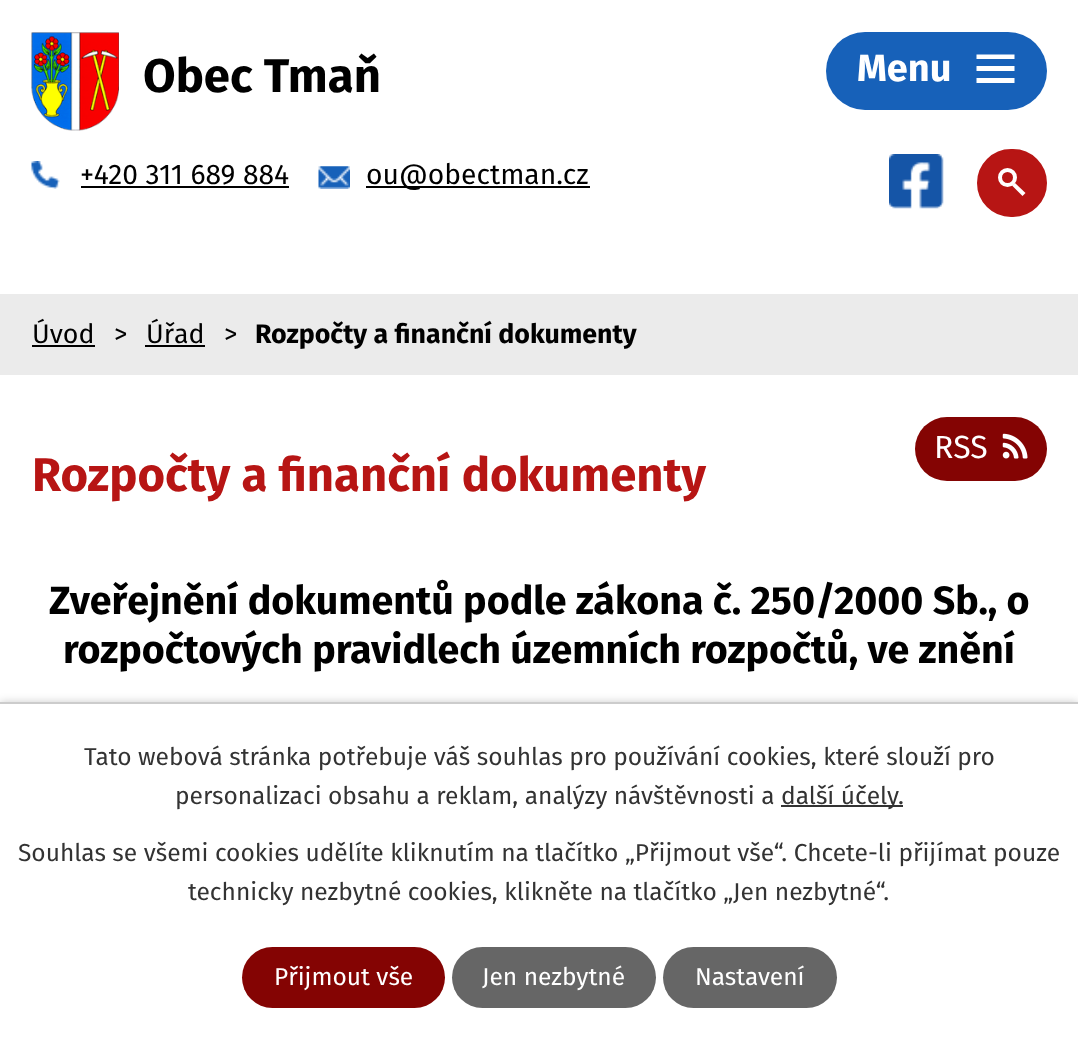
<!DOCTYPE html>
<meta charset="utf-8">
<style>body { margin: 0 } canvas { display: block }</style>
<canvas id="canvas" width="1078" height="1040"></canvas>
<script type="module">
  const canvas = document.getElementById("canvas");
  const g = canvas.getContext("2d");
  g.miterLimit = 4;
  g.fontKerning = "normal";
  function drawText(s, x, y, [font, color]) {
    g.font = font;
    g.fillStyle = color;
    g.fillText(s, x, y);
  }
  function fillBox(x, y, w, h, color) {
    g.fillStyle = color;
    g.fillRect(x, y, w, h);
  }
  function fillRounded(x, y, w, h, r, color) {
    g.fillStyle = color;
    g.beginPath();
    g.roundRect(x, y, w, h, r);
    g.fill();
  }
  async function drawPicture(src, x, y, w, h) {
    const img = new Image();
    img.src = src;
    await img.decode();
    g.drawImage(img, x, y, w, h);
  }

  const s1 = ["bold 47.25px Fira Sans", "#000000"];
  const s2 = ["28.25px Fira Sans", "#000000"];
  const s3 = ["bold 38px Fira Sans", "#FFFFFF"];
  const s4 = ["26.75px Fira Sans", "#000000"];
  const s5 = ["bold 26.75px Fira Sans", "#000000"];
  const s6 = ["32px Fira Sans", "#FFFFFF"];
  const s7 = ["bold 47.25px Fira Sans", "#B71514"];
  const s8 = ["bold 39.4px Fira Sans", "#000000"];
  const s9 = ["24.5px Fira Sans", "#333333"];
  const s10 = ["24.5px Fira Sans", "#FFFFFF"];

  fillBox(0, 0, 1078, 1040, "#FFFFFF");
  await drawPicture("pic1.png", 31, 32, 88, 99);
  drawText("Obec Tmaň", 143, 92, s1);
  await drawPicture("pic2.png", 31, 161, 29, 28);
  drawText("+420 311 689 884", 80, 184, s2);
  fillBox(81, 186, 208, 2, "#000000");
  await drawPicture("pic3.png", 318, 166, 32, 23);
  fillBox(366, 186, 224, 2, "#000000");
  drawText("ou@obectman.cz", 366, 184, s2);
  await drawPicture("pic4.png", 889, 154, 55, 55);
  g.fillStyle = "#B71514";
  g.beginPath();
  g.roundRect(978, 150, 68, 66, 33);
  g.fill();
  g.strokeStyle = "#B71514";
  g.lineWidth = 2;
  g.stroke();
  g.beginPath();
  g.arc(1007.5, 177.5, 7.5, 0, Math.PI * 2);
  g.strokeStyle = "#FFFFFF";
  g.lineWidth = 4;
  g.stroke();
  g.fillStyle = "#FFFFFF";
  g.beginPath();
  g.moveTo(1015, 183);
  g.lineTo(1025.5, 193);
  g.lineTo(1022.5, 196);
  g.lineTo(1012, 185.5);
  g.closePath();
  g.fill();
  fillRounded(826, 32, 221, 78, 39, "#1761B9");
  drawText("Menu", 857, 81, s3);
  g.beginPath();
  g.moveTo(976.5, 83);
  g.lineTo(976.5, 78);
  g.lineTo(1014.5, 78);
  g.lineTo(1014.5, 83);
  g.closePath();
  g.moveTo(976.5, 54.5);
  g.lineTo(1014.5, 54.5);
  g.lineTo(1014.5, 59);
  g.lineTo(976.5, 59);
  g.closePath();
  g.moveTo(976.5, 71);
  g.lineTo(976.5, 66);
  g.lineTo(1014.5, 66);
  g.lineTo(1014.5, 71);
  g.closePath();
  g.fill();
  fillBox(0, 294, 1078, 81, "#EBEBEB");
  drawText("Úvod", 32, 343, s4);
  fillBox(32, 345, 63, 2, "#000000");
  drawText(">", 114, 343, s4);
  drawText("Úřad", 146, 343, s4);
  fillBox(145, 345, 60, 2, "#000000");
  drawText(">", 224, 343, s4);
  drawText("Rozpočty a finanční dokumenty", 255, 343, s5);
  fillRounded(915, 417, 132, 64, 32, "#840403");
  drawText("RSS", 934, 458, s6);
  await drawPicture("pic5.png", 1002, 433, 26, 26);
  drawText("Rozpočty a finanční dokumenty", 32, 491, s7);
  drawText("Zveřejnění dokumentů podle zákona č. 250/2000 Sb., o", 49, 614, s8);
  drawText("rozpočtových pravidlech územních rozpočtů, ve znění", 63, 663, s8);
  g.fillStyle = "rgba(0, 0, 0, 0.2)";
  g.filter = "blur(4.5px)";
  g.beginPath();
  g.rect(0, 702, 1078, 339);
  g.fill();
  g.filter = "none";
  fillBox(0, 704, 1078, 336, "#FFFFFF");
  fillBox(0, 702, 1078, 2, "#CCCCCC");
  drawText("Tato webová stránka potřebuje váš souhlas pro používání cookies, které slouží pro", 84, 765, s9);
  drawText("personalizaci obsahu a reklam, analýzy návštěvnosti a", 175, 804, s9);
  fillBox(781, 805, 122, 2, "#333333");
  drawText("další účely.", 781, 804, s9);
  drawText("Souhlas se všemi cookies udělíte kliknutím na tlačítko „Přijmout vše“. Chcete-li přijímat pouze", 18, 861, s9);
  drawText("technicky nezbytné cookies, klikněte na tlačítko „Jen nezbytné“.", 188, 900, s9);
  fillRounded(242, 947, 203, 61, 30.5, "#840403");
  drawText("Přijmout vše", 274, 985, s10);
  fillRounded(452, 947, 204, 61, 30.5, "#666666");
  drawText("Jen nezbytné", 482, 985, s10);
  fillRounded(663, 947, 174, 61, 30.5, "#666666");
  drawText("Nastavení", 695, 985, s10);
</script>
